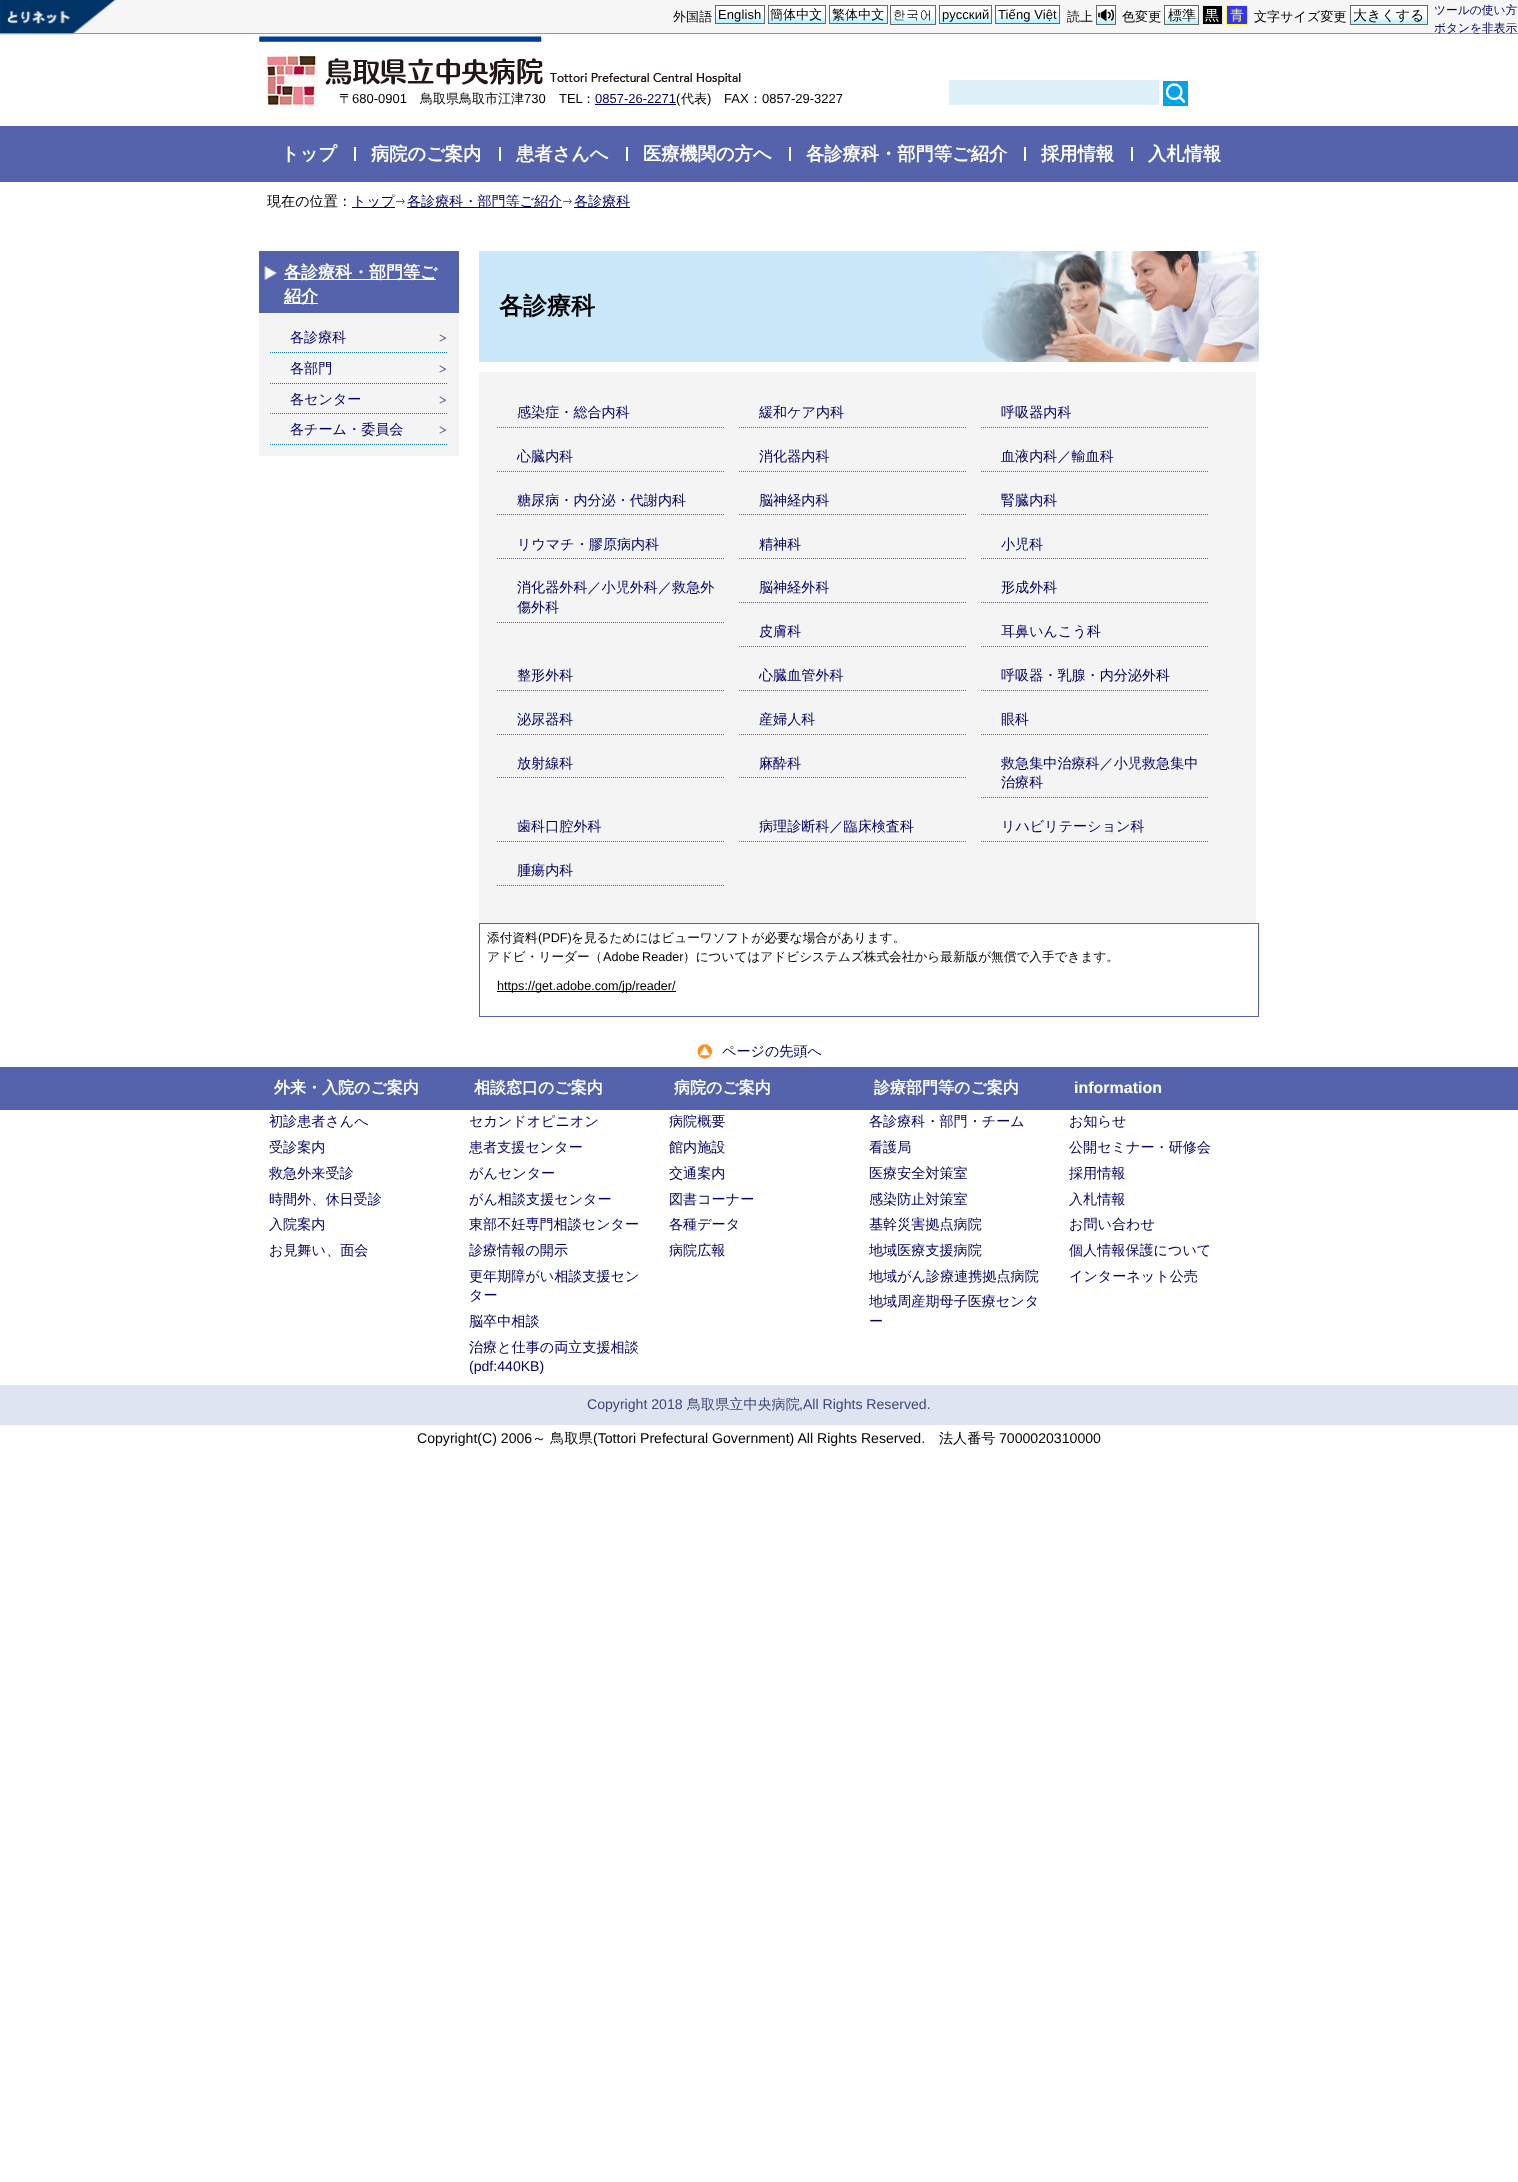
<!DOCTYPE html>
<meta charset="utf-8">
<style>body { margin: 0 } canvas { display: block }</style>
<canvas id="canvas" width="1518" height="2182"></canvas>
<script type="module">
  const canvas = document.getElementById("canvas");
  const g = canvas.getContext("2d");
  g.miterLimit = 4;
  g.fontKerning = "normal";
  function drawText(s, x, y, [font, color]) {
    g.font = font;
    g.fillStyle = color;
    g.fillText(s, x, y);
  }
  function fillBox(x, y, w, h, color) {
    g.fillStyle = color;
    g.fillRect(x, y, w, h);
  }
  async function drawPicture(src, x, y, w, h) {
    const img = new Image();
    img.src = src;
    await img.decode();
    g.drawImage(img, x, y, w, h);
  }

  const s1 = ["500 13px WenQuanYi Zen Hei", "#000000"];
  const s2 = ["13px Liberation Sans", "#000000"];
  const s3 = ["13px Gulim", "#000000"];
  const s4 = ["500 14px WenQuanYi Zen Hei", "#000000"];
  const s5 = ["500 14px WenQuanYi Zen Hei", "#FFFFFF"];
  const s6 = ["500 14px WenQuanYi Zen Hei", "#FFFF33"];
  const s7 = ["500 11.75px WenQuanYi Zen Hei", "#000066"];
  const s8 = ["13px Liberation Sans", "#000066"];
  const s9 = ["bold 18.25px WenQuanYi Zen Hei", "#FFFFFF"];
  const s10 = ["500 14.1px WenQuanYi Zen Hei", "#000000"];
  const s11 = ["500 14.1px WenQuanYi Zen Hei", "#000066"];
  const s12 = ["bold 17px WenQuanYi Zen Hei", "#FFFFFF"];
  const s13 = ["bold 24px WenQuanYi Zen Hei", "#000000"];
  const s14 = ["500 12.65px WenQuanYi Zen Hei", "#000000"];
  const s15 = ["12.65px Liberation Sans", "#000000"];
  const s16 = ["bold 16px WenQuanYi Zen Hei", "#FFFFFF"];
  const s17 = ["14.1px Liberation Sans", "#000066"];
  const s18 = ["bold 16px Liberation Sans", "#FFFFFF"];
  const s19 = ["14.1px Liberation Sans", "#3C477B"];
  const s20 = ["500 14.1px WenQuanYi Zen Hei", "#3C477B"];
  const s21 = ["14.1px Liberation Sans", "#000000"];

  fillBox(0, 0, 1518, 2182, "#FFFFFF");
  fillBox(22, 0, 1496, 33, "#F6F6F6");
  await drawPicture("pic1.png", 0, 0, 116, 35);
  fillBox(0, 33, 1518, 1, "#999999");
  g.letterSpacing = "0.1px";
  drawText("外国語", 673, 21, s1);
  fillBox(716, 6, 48, 9, "#FFFFFF");
  await drawPicture("pic2.png", 716, 15, 48, 8);
  g.strokeStyle = "#666666";
  g.strokeRect(715.5, 5.5, 49, 18);
  drawText("English", 718, 19, s2);
  fillBox(769, 6, 56, 9, "#FFFFFF");
  await drawPicture("pic3.png", 769, 15, 56, 8);
  g.strokeRect(768.5, 5.5, 57, 18);
  drawText("簡体中文", 770, 19, s1);
  fillBox(830, 6, 57, 9, "#FFFFFF");
  await drawPicture("pic4.png", 830, 15, 57, 8);
  g.strokeRect(829.5, 5.5, 58, 18);
  drawText("繁体中文", 832, 19, s1);
  fillBox(891, 6, 44, 10, "#FFFFFF");
  await drawPicture("pic5.png", 891, 16, 44, 8);
  g.strokeRect(890.5, 5.5, 45, 19);
  drawText("한국어", 893, 20, s3);
  fillBox(940, 6, 51, 9, "#FFFFFF");
  await drawPicture("pic6.png", 940, 15, 51, 8);
  g.strokeRect(939.5, 5.5, 52, 18);
  drawText("русский", 942, 19, s2);
  fillBox(996, 6, 63, 9, "#FFFFFF");
  await drawPicture("pic7.png", 996, 15, 63, 8);
  g.strokeRect(995.5, 5.5, 64, 18);
  drawText("Tiếng Việt", 998, 19, s2);
  drawText("読上", 1067, 21, s1);
  fillBox(1097, 6, 18, 10, "#FFFFFF");
  await drawPicture("pic8.png", 1097, 16, 18, 8);
  g.strokeRect(1096.5, 5.5, 19, 19);
  await drawPicture("pic9.png", 1098, 9, 16, 12);
  drawText("色変更", 1122, 21, s1);
  fillBox(1165, 6, 33, 10, "#FFFFFF");
  await drawPicture("pic10.png", 1165, 16, 33, 8);
  g.strokeRect(1164.5, 5.5, 34, 19);
  g.letterSpacing = "0px";
  drawText("標準", 1168, 20, s4);
  g.beginPath();
  g.rect(1202.5, 5.5, 20, 19);
  g.fill();
  g.strokeStyle = "#EEEEEE";
  g.stroke();
  drawText("黒", 1205, 20, s5);
  g.fillStyle = "#3333FF";
  g.beginPath();
  g.rect(1226.5, 5.5, 21, 19);
  g.fill();
  g.strokeStyle = "#FFFF33";
  g.stroke();
  drawText("青", 1230, 20, s6);
  g.letterSpacing = "0.1px";
  drawText("文字サイズ変更", 1254, 21, s1);
  await drawPicture("pic11.png", 1351, 6, 76, 18);
  g.strokeStyle = "#666666";
  g.strokeRect(1350.5, 5.5, 77, 19);
  g.letterSpacing = "0px";
  drawText("大きくする", 1353, 20, s4);
  drawText("ツールの使い方", 1434, 14, s7);
  drawText("ボタンを非表示", 1434, 32, s7);
  await drawPicture("pic12.png", 259, 36, 482, 70);
  drawText("〒", 339, 103, s1);
  drawText("680-0901", 352, 103, s2);
  drawText("鳥取県鳥取市江津", 420, 103, s1);
  drawText("730", 524, 103, s2);
  drawText("TEL", 559, 103, s2);
  drawText("：", 582, 103, s1);
  drawText("0857-26-2271", 595, 103, s8);
  fillBox(595, 104, 81, 1, "#000066");
  drawText("(", 676, 103, s2);
  drawText("代表", 681, 103, s1);
  drawText(")", 707, 103, s2);
  drawText("FAX", 724, 103, s2);
  drawText("：", 749, 103, s1);
  drawText("0857-29-3227", 762, 103, s2);
  fillBox(949, 80, 210, 25, "#DEF1FB");
  fillBox(1163, 81, 25, 25, "#00A2E8");
  await drawPicture("pic13.png", 1165, 83, 21, 21);
  fillBox(0, 126, 1518, 56, "#5463AB");
  drawText("トップ", 281, 160, s9);
  fillBox(354, 147, 2, 14, "#FEFEFE");
  drawText("病院のご案内", 371, 160, s9);
  fillBox(499, 147, 2, 14, "#FEFEFE");
  drawText("患者さんへ", 516, 160, s9);
  fillBox(626, 147, 2, 14, "#FEFEFE");
  drawText("医療機関の方へ", 643, 160, s9);
  fillBox(789, 147, 2, 14, "#FEFEFE");
  drawText("各診療科・部門等ご紹介", 806, 160, s9);
  fillBox(1024, 147, 2, 14, "#FEFEFE");
  drawText("採用情報", 1041, 160, s9);
  fillBox(1131, 147, 2, 14, "#FEFEFE");
  drawText("入札情報", 1148, 160, s9);
  drawText("現在の位置：", 267, 206, s10);
  fillBox(352, 207, 43, 1, "#000066");
  drawText("トップ", 352, 206, s11);
  await drawPicture("pic14.png", 396, 199, 9, 5);
  fillBox(407, 207, 155, 1, "#000066");
  drawText("各診療科・部門等ご紹介", 407, 206, s11);
  await drawPicture("pic14.png", 563, 199, 9, 5);
  fillBox(574, 207, 56, 1, "#000066");
  drawText("各診療科", 574, 206, s11);
  fillBox(259, 251, 200, 62, "#5463AB");
  await drawPicture("pic15.png", 264, 266, 13, 14);
  fillBox(284, 279, 152, 1, "#FFFFFF");
  drawText("各診療科・部門等ご", 284, 278, s12);
  fillBox(284, 303, 34, 1, "#FFFFFF");
  drawText("紹介", 284, 302, s12);
  fillBox(259, 313, 200, 143, "#F4F4F4");
  await drawPicture("pic16.png", 439, 334, 7, 8);
  g.beginPath();
  g.moveTo(270, 352.5);
  g.lineTo(448, 352.5);
  g.strokeStyle = "#1677BD";
  g.setLineDash([1, 1]);
  g.stroke();
  drawText("各診療科", 290, 342, s11);
  await drawPicture("pic16.png", 439, 365, 7, 8);
  g.beginPath();
  g.moveTo(270, 383.5);
  g.lineTo(448, 383.5);
  g.stroke();
  drawText("各部門", 290, 373, s11);
  await drawPicture("pic16.png", 439, 396, 7, 8);
  g.beginPath();
  g.moveTo(270, 413.5);
  g.lineTo(448, 413.5);
  g.stroke();
  drawText("各センター", 290, 404, s11);
  await drawPicture("pic16.png", 439, 426, 7, 8);
  g.beginPath();
  g.moveTo(270, 444.5);
  g.lineTo(448, 444.5);
  g.stroke();
  drawText("各チーム・委員会", 290, 434, s11);
  fillBox(479, 251, 780, 111, "#C9E8F9");
  await drawPicture("pic17.png", 982, 251, 277, 111);
  drawText("各診療科", 499, 314, s13);
  fillBox(479, 372, 777, 551, "#F4F4F4");
  g.beginPath();
  g.moveTo(497, 427.5);
  g.lineTo(724, 427.5);
  g.strokeStyle = "#686868";
  g.stroke();
  drawText("感染症・総合内科", 517, 417, s11);
  g.beginPath();
  g.moveTo(739, 427.5);
  g.lineTo(966, 427.5);
  g.stroke();
  drawText("緩和ケア内科", 759, 417, s11);
  g.beginPath();
  g.moveTo(981, 427.5);
  g.lineTo(1208, 427.5);
  g.stroke();
  drawText("呼吸器内科", 1001, 417, s11);
  g.beginPath();
  g.moveTo(497, 471.5);
  g.lineTo(724, 471.5);
  g.stroke();
  drawText("心臓内科", 517, 461, s11);
  g.beginPath();
  g.moveTo(739, 471.5);
  g.lineTo(966, 471.5);
  g.stroke();
  drawText("消化器内科", 759, 461, s11);
  g.beginPath();
  g.moveTo(981, 471.5);
  g.lineTo(1208, 471.5);
  g.stroke();
  drawText("血液内科／輸血科", 1001, 461, s11);
  g.beginPath();
  g.moveTo(497, 514.5);
  g.lineTo(724, 514.5);
  g.stroke();
  drawText("糖尿病・内分泌・代謝内科", 517, 505, s11);
  g.beginPath();
  g.moveTo(739, 514.5);
  g.lineTo(966, 514.5);
  g.stroke();
  drawText("脳神経内科", 759, 505, s11);
  g.beginPath();
  g.moveTo(981, 514.5);
  g.lineTo(1208, 514.5);
  g.stroke();
  drawText("腎臓内科", 1001, 505, s11);
  g.beginPath();
  g.moveTo(497, 558.5);
  g.lineTo(724, 558.5);
  g.stroke();
  drawText("リウマチ・膠原病内科", 517, 549, s11);
  g.beginPath();
  g.moveTo(739, 558.5);
  g.lineTo(966, 558.5);
  g.stroke();
  drawText("精神科", 759, 549, s11);
  g.beginPath();
  g.moveTo(981, 558.5);
  g.lineTo(1208, 558.5);
  g.stroke();
  drawText("小児科", 1001, 549, s11);
  g.beginPath();
  g.moveTo(497, 622.5);
  g.lineTo(724, 622.5);
  g.stroke();
  drawText("消化器外科／小児外科／救急外", 517, 592, s11);
  drawText("傷外科", 517, 612, s11);
  g.beginPath();
  g.moveTo(739, 602.5);
  g.lineTo(966, 602.5);
  g.stroke();
  drawText("脳神経外科", 759, 592, s11);
  g.beginPath();
  g.moveTo(981, 602.5);
  g.lineTo(1208, 602.5);
  g.stroke();
  drawText("形成外科", 1001, 592, s11);
  g.beginPath();
  g.moveTo(739, 646.5);
  g.lineTo(966, 646.5);
  g.stroke();
  drawText("皮膚科", 759, 636, s11);
  g.beginPath();
  g.moveTo(981, 646.5);
  g.lineTo(1208, 646.5);
  g.stroke();
  drawText("耳鼻いんこう科", 1001, 636, s11);
  g.beginPath();
  g.moveTo(497, 690.5);
  g.lineTo(724, 690.5);
  g.stroke();
  drawText("整形外科", 517, 680, s11);
  g.beginPath();
  g.moveTo(739, 690.5);
  g.lineTo(966, 690.5);
  g.stroke();
  drawText("心臓血管外科", 759, 680, s11);
  g.beginPath();
  g.moveTo(981, 690.5);
  g.lineTo(1208, 690.5);
  g.stroke();
  drawText("呼吸器・乳腺・内分泌外科", 1001, 680, s11);
  g.beginPath();
  g.moveTo(497, 734.5);
  g.lineTo(724, 734.5);
  g.stroke();
  drawText("泌尿器科", 517, 724, s11);
  g.beginPath();
  g.moveTo(739, 734.5);
  g.lineTo(966, 734.5);
  g.stroke();
  drawText("産婦人科", 759, 724, s11);
  g.beginPath();
  g.moveTo(981, 734.5);
  g.lineTo(1208, 734.5);
  g.stroke();
  drawText("眼科", 1001, 724, s11);
  g.beginPath();
  g.moveTo(497, 777.5);
  g.lineTo(724, 777.5);
  g.stroke();
  drawText("放射線科", 517, 768, s11);
  g.beginPath();
  g.moveTo(739, 777.5);
  g.lineTo(966, 777.5);
  g.stroke();
  drawText("麻酔科", 759, 768, s11);
  g.beginPath();
  g.moveTo(981, 797.5);
  g.lineTo(1208, 797.5);
  g.stroke();
  drawText("救急集中治療科／小児救急集中", 1001, 768, s11);
  drawText("治療科", 1001, 787, s11);
  g.beginPath();
  g.moveTo(497, 841.5);
  g.lineTo(724, 841.5);
  g.stroke();
  drawText("歯科口腔外科", 517, 831, s11);
  g.beginPath();
  g.moveTo(739, 841.5);
  g.lineTo(966, 841.5);
  g.stroke();
  drawText("病理診断科／臨床検査科", 759, 831, s11);
  g.beginPath();
  g.moveTo(981, 841.5);
  g.lineTo(1208, 841.5);
  g.stroke();
  drawText("リハビリテーション科", 1001, 831, s11);
  g.beginPath();
  g.moveTo(497, 885.5);
  g.lineTo(724, 885.5);
  g.stroke();
  drawText("腫瘍内科", 517, 875, s11);
  g.strokeStyle = "#5463AB";
  g.setLineDash([]);
  g.strokeRect(479.5, 923.5, 779, 93);
  drawText("添付資料", 487, 942, s14);
  drawText("(PDF)", 538, 942, s15);
  drawText("を見るためにはビューワソフトが必要な場合があります。", 571, 942, s14);
  drawText("アドビ・リーダー（", 487, 961, s14);
  g.wordSpacing = "-1px";
  drawText("Adobe Reader", 603, 961, s15);
  g.wordSpacing = "0px";
  drawText("）についてはアドビシステムズ株式会社から最新版が無償で入手できます。", 683, 961, s14);
  fillBox(497, 991, 179, 1, "#000000");
  drawText("https://get.adobe.com/jp/reader/", 497, 990, s15);
  await drawPicture("pic18.png", 697, 1044, 15, 15);
  drawText("ページの先頭へ", 722, 1056, s11);
  fillBox(0, 1067, 1518, 43, "#5463AB");
  drawText("外来・入院のご案内", 274, 1093, s16);
  drawText("初診患者さんへ", 269, 1126, s11);
  drawText("受診案内", 269, 1152, s11);
  drawText("救急外来受診", 269, 1178, s11);
  drawText("時間外、休日受診", 269, 1204, s11);
  drawText("入院案内", 269, 1229, s11);
  drawText("お見舞い、面会", 269, 1255, s11);
  drawText("相談窓口のご案内", 474, 1093, s16);
  drawText("セカンドオピニオン", 469, 1126, s11);
  drawText("患者支援センター", 469, 1152, s11);
  drawText("がんセンター", 469, 1178, s11);
  drawText("がん相談支援センター", 469, 1204, s11);
  drawText("東部不妊専門相談センター", 469, 1229, s11);
  drawText("診療情報の開示", 469, 1255, s11);
  drawText("更年期障がい相談支援セン", 469, 1281, s11);
  drawText("ター", 469, 1300, s11);
  drawText("脳卒中相談", 469, 1326, s11);
  drawText("治療と仕事の両立支援相談", 469, 1352, s11);
  drawText("(pdf:440KB)", 469, 1371, s17);
  drawText("病院のご案内", 674, 1093, s16);
  drawText("病院概要", 669, 1126, s11);
  drawText("館内施設", 669, 1152, s11);
  drawText("交通案内", 669, 1178, s11);
  drawText("図書コーナー", 669, 1204, s11);
  drawText("各種データ", 669, 1229, s11);
  drawText("病院広報", 669, 1255, s11);
  drawText("診療部門等のご案内", 874, 1093, s16);
  drawText("各診療科・部門・チーム", 869, 1126, s11);
  drawText("看護局", 869, 1152, s11);
  drawText("医療安全対策室", 869, 1178, s11);
  drawText("感染防止対策室", 869, 1204, s11);
  drawText("基幹災害拠点病院", 869, 1229, s11);
  drawText("地域医療支援病院", 869, 1255, s11);
  drawText("地域がん診療連携拠点病院", 869, 1281, s11);
  drawText("地域周産期母子医療センタ", 869, 1306, s11);
  drawText("ー", 869, 1326, s11);
  drawText("information", 1074, 1093, s18);
  drawText("お知らせ", 1069, 1126, s11);
  drawText("公開セミナー・研修会", 1069, 1152, s11);
  drawText("採用情報", 1069, 1178, s11);
  drawText("入札情報", 1069, 1204, s11);
  drawText("お問い合わせ", 1069, 1229, s11);
  drawText("個人情報保護について", 1069, 1255, s11);
  drawText("インターネット公売", 1069, 1281, s11);
  fillBox(0, 1385, 1518, 40, "#DEE5F1");
  drawText("Copyright 2018", 587, 1409, s19);
  drawText("鳥取県立中央病院", 687, 1409, s20);
  drawText(",All Rights Reserved.", 799, 1409, s19);
  drawText("Copyright(C) 2006", 417, 1443, s21);
  drawText("～ 鳥取県", 532, 1443, s10);
  drawText("(Tottori Prefectural Government) All Rights Reserved.", 593, 1443, s21);
  drawText("法人番号", 939, 1443, s10);
  drawText("7000020310000", 999, 1443, s21);
</script>
